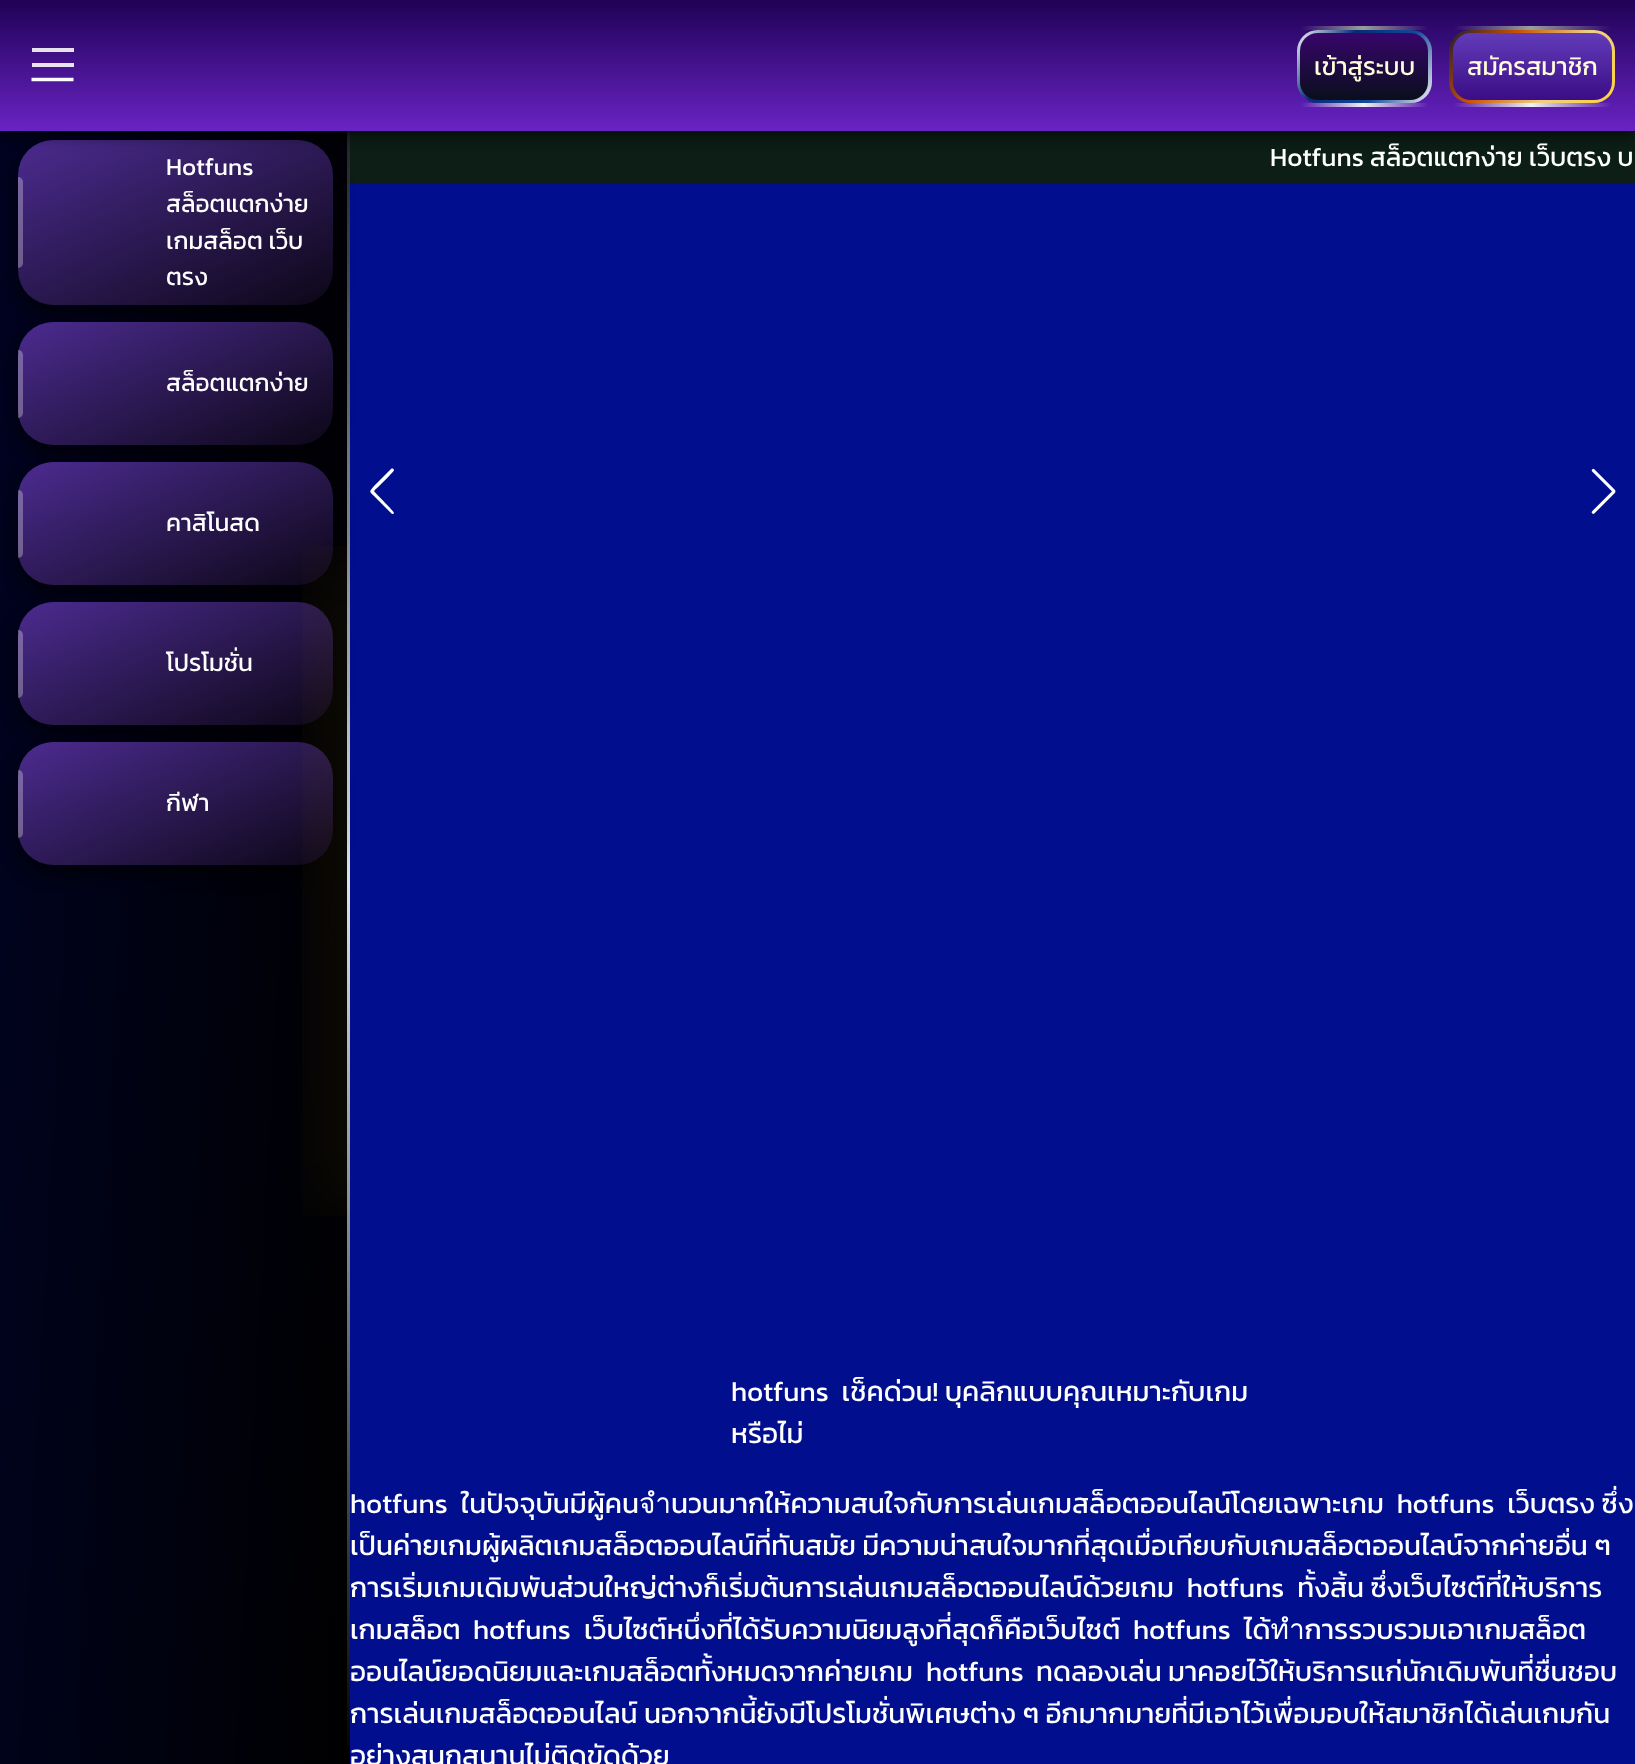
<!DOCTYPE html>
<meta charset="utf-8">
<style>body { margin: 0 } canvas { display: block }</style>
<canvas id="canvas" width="1635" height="1764"></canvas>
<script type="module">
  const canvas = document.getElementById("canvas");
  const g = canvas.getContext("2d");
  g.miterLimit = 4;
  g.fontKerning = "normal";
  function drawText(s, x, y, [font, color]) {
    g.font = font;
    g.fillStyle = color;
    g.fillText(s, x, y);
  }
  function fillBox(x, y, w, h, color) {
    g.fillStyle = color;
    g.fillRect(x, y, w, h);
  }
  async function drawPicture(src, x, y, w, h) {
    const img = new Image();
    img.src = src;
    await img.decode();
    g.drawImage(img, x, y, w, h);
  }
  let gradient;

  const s1 = ["28px Kanit", "#FFFFFF"];
  const s2 = ["25.25px Kanit", "#FFFCDB"];
  const s3 = ["24.5px Kanit", "#FFFFFF"];
  const s4 = ["26.25px Kanit", "#FFFFFF"];

  fillBox(0, 0, 1635, 1764, "#010F8E");
  drawText("เป็นค่ายเกมผู้ผลิตเกมสล็อตออนไลน์ที่ทันสมัย มีความน่าสนใจมากที่สุดเมื่อเทียบกับเกมสล็อตออนไลน์จากค่ายอื่น ๆ", 350, 1555, s1);
  gradient = g.createLinearGradient(-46, 870, 396, 894);
  gradient.addColorStop(0, "rgba(0, 0, 0, 0.77)");
  gradient.addColorStop(1, "#000000");
  g.fillStyle = gradient;
  g.fillRect(0, 131, 350, 1633);
  gradient = g.createLinearGradient(-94, 1324, 790, 440);
  gradient.addColorStop(0, "rgba(220, 226, 231, 0)");
  gradient.addColorStop(0.5, "#DCE2E7");
  gradient.addColorStop(1, "rgba(220, 226, 231, 0)");
  g.fillStyle = gradient;
  g.fillRect(347, 131, 3, 1617);
  fillBox(350, 131, 1285, 53, "#0C1E15");
  g.fillStyle = "rgba(0, 0, 0, 0.69)";
  g.filter = "blur(9px)";
  g.beginPath();
  g.roundRect(18, 149, 315, 164, 35);
  g.fill();
  g.filter = "none";
  gradient = g.createLinearGradient(115, 94, 235, 350);
  gradient.addColorStop(0, "#4C2B90");
  gradient.addColorStop(1, "#0C0717");
  g.fillStyle = gradient;
  g.beginPath();
  g.roundRect(18, 140, 315, 165, 35);
  g.fill();
  g.fillStyle = "#000000";
  g.filter = "blur(9px)";
  g.beginPath();
  g.rect(0, 0, 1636, 131);
  g.fill();
  g.filter = "none";
  gradient = g.createLinearGradient(818, 0, 818, 131);
  gradient.addColorStop(0, "#1F0256");
  gradient.addColorStop(1, "#6923C4");
  g.fillStyle = gradient;
  g.fillRect(0, 0, 1635, 131);
  fillBox(32, 48, 42, 4, "#E7E1EF");
  fillBox(32, 63, 42, 4, "rgba(255, 255, 255, 0.88)");
  g.beginPath();
  g.moveTo(31.5, 79.5);
  g.lineTo(73.5, 79.5);
  g.strokeStyle = "#FFFFFF";
  g.lineWidth = 3.5;
  g.stroke();
  gradient = g.createLinearGradient(1302, 23, 1427, 110);
  gradient.addColorStop(0, "#F8F9FA");
  gradient.addColorStop(0.32, "#042C78");
  gradient.addColorStop(0.65, "#15499A");
  gradient.addColorStop(1, "#F2F2F2");
  g.fillStyle = gradient;
  g.beginPath();
  g.roundRect(1297, 30, 135, 73, 21);
  g.fill();
  gradient = g.createLinearGradient(1364, 30, 1364, 103);
  gradient.addColorStop(0, "#39056F");
  gradient.addColorStop(1, "#080F19");
  g.fillStyle = gradient;
  g.beginPath();
  g.roundRect(1300, 33, 128, 67, 18);
  g.fill();
  gradient = g.createLinearGradient(1428, 28, 1301, 28);
  gradient.addColorStop(0, "rgba(154, 159, 154, 0)");
  gradient.addColorStop(0.51, "#9A9F9A");
  gradient.addColorStop(1, "rgba(154, 159, 154, 0)");
  g.fillStyle = gradient;
  g.fillRect(1300, 26, 128, 4);
  drawText("เข้าสู่ระบบ", 1314, 75, s2);
  gradient = g.createLinearGradient(1428, 105, 1301, 105);
  gradient.addColorStop(0, "#5A1DAE");
  gradient.addColorStop(0.51, "#F2F2F2");
  gradient.addColorStop(1, "#5A1DAE");
  g.fillStyle = gradient;
  g.fillRect(1300, 103, 128, 4);
  gradient = g.createLinearGradient(1459, 15, 1605, 118);
  gradient.addColorStop(0, "#1D1E31");
  gradient.addColorStop(0.32, "#C85101");
  gradient.addColorStop(0.65, "#EED085");
  gradient.addColorStop(1, "#FED237");
  g.fillStyle = gradient;
  g.beginPath();
  g.roundRect(1449, 30, 166, 73, 21);
  g.fill();
  gradient = g.createLinearGradient(1532, 30, 1532, 103);
  gradient.addColorStop(0, "#643EBC");
  gradient.addColorStop(1, "#390A83");
  g.fillStyle = gradient;
  g.beginPath();
  g.roundRect(1453, 33, 159, 67, 18);
  g.fill();
  gradient = g.createLinearGradient(1611, 28, 1454, 28);
  gradient.addColorStop(0, "rgba(154, 159, 154, 0)");
  gradient.addColorStop(0.51, "#9A9F9A");
  gradient.addColorStop(1, "rgba(154, 159, 154, 0)");
  g.fillStyle = gradient;
  g.fillRect(1454, 26, 158, 4);
  drawText("สมัครสมาชิก", 1467, 75, s2);
  gradient = g.createLinearGradient(1611, 105, 1454, 105);
  gradient.addColorStop(0, "#5A1DAE");
  gradient.addColorStop(0.51, "#F2F2F2");
  gradient.addColorStop(1, "#5A1DAE");
  g.fillStyle = gradient;
  g.fillRect(1454, 103, 158, 4);
  g.fillStyle = "rgba(250, 250, 250, 0.3)";
  g.beginPath();
  g.roundRect(18, 177, 5, 91, [0, 5, 5, 0]);
  g.fill();
  drawText("Hotfuns", 166, 175, s3);
  drawText("สล็อตแตกง่าย", 166, 212, s3);
  drawText("เกมสล็อต เว็บ", 166, 249, s3);
  drawText("ตรง", 166, 285, s3);
  g.fillStyle = "rgba(0, 0, 0, 0.69)";
  g.filter = "blur(9px)";
  g.beginPath();
  g.roundRect(18, 331, 315, 122, 35);
  g.fill();
  g.filter = "none";
  gradient = g.createLinearGradient(123, 273, 227, 494);
  gradient.addColorStop(0, "#4C2B90");
  gradient.addColorStop(1, "#0C0717");
  g.fillStyle = gradient;
  g.beginPath();
  g.roundRect(18, 322, 315, 123, 35);
  g.fill();
  g.fillStyle = "rgba(250, 250, 250, 0.3)";
  g.beginPath();
  g.roundRect(18, 350, 5, 68, [0, 5, 5, 0]);
  g.fill();
  drawText("สล็อตแตกง่าย", 166, 391, s3);
  g.fillStyle = "rgba(0, 0, 0, 0.69)";
  g.filter = "blur(9px)";
  g.beginPath();
  g.roundRect(18, 471, 315, 122, 35);
  g.fill();
  g.filter = "none";
  gradient = g.createLinearGradient(123, 413, 227, 634);
  gradient.addColorStop(0, "#4C2B90");
  gradient.addColorStop(1, "#0C0717");
  g.fillStyle = gradient;
  g.beginPath();
  g.roundRect(18, 462, 315, 123, 35);
  g.fill();
  g.fillStyle = "rgba(250, 250, 250, 0.3)";
  g.beginPath();
  g.roundRect(18, 490, 5, 68, [0, 5, 5, 0]);
  g.fill();
  drawText("คาสิโนสด", 166, 531, s3);
  g.fillStyle = "rgba(0, 0, 0, 0.69)";
  g.filter = "blur(9px)";
  g.beginPath();
  g.roundRect(18, 611, 315, 122, 35);
  g.fill();
  g.filter = "none";
  gradient = g.createLinearGradient(123, 553, 227, 774);
  gradient.addColorStop(0, "#4C2B90");
  gradient.addColorStop(1, "#0C0717");
  g.fillStyle = gradient;
  g.beginPath();
  g.roundRect(18, 602, 315, 123, 35);
  g.fill();
  g.fillStyle = "rgba(250, 250, 250, 0.3)";
  g.beginPath();
  g.roundRect(18, 630, 5, 68, [0, 5, 5, 0]);
  g.fill();
  drawText("โปรโมชั่น", 166, 671, s3);
  g.fillStyle = "rgba(0, 0, 0, 0.69)";
  g.filter = "blur(9px)";
  g.beginPath();
  g.roundRect(18, 751, 315, 122, 35);
  g.fill();
  g.filter = "none";
  gradient = g.createLinearGradient(123, 693, 227, 914);
  gradient.addColorStop(0, "#4C2B90");
  gradient.addColorStop(1, "#0C0717");
  g.fillStyle = gradient;
  g.beginPath();
  g.roundRect(18, 742, 315, 123, 35);
  g.fill();
  g.fillStyle = "rgba(250, 250, 250, 0.3)";
  g.beginPath();
  g.roundRect(18, 770, 5, 68, [0, 5, 5, 0]);
  g.fill();
  drawText("กีฬา", 166, 811, s3);
  g.save();
  g.beginPath();
  g.rect(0, 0, 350, 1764);
  g.clip();
  g.beginPath();
  g.rect(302, 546, 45, 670);
  g.clip();
  g.fillStyle = "#FFC107";
  g.filter = "blur(39.5px)";
  g.beginPath();
  g.rect(347, 546, 4, 670);
  g.fill();
  g.filter = "none";
  g.restore();
  drawText("Hotfuns สล็อตแตกง่าย เว็บตรง บ", 1270, 166, s4);
  g.beginPath();
  g.moveTo(391, 469);
  g.bezierCurveTo(392, 468, 394, 469, 394, 470);
  g.bezierCurveTo(394, 472, 376, 489, 374, 491);
  g.bezierCurveTo(376, 494, 394, 511, 394, 513);
  g.bezierCurveTo(393, 516, 390, 512, 388, 510);
  g.lineTo(374, 496);
  g.bezierCurveTo(369, 491, 369, 492, 374, 486);
  g.closePath();
  g.fill();
  await drawPicture("pic1.png", 1591, 468, 25, 46);
  drawText("hotfuns  เช็คด่วน! บุคลิกแบบคุณเหมาะกับเกม", 731, 1401, s1);
  drawText("หรือไม่", 731, 1443, s1);
  drawText("hotfuns", 350, 1513, s1);
  drawText("ในปัจจุบันมีผู้คนจำนวนมากให้ความสนใจกับการเล่นเกมสล็อตออนไลน์โดยเฉพาะเกม  hotfuns  เว็บตรง ซึ่ง", 461, 1513, s1);
  drawText("การเริ่มเกมเดิมพันส่วนใหญ่ต่างก็เริ่มต้นการเล่นเกมสล็อตออนไลน์ด้วยเกม  hotfuns  ทั้งสิ้น ซึ่งเว็บไซต์ที่ให้บริการ", 350, 1597, s1);
  drawText("เกมสล็อต", 350, 1639, s1);
  drawText("hotfuns", 473, 1639, s1);
  drawText("เว็บไซต์หนึ่งที่ได้รับความนิยมสูงที่สุดก็คือเว็บไซต์", 584, 1639, s1);
  drawText("hotfuns", 1133, 1639, s1);
  drawText("ได้ทำการรวบรวมเอาเกมสล็อต", 1244, 1639, s1);
  drawText("ออนไลน์ยอดนิยมและเกมสล็อตทั้งหมดจากค่ายเกม", 350, 1681, s1);
  drawText("hotfuns", 926, 1681, s1);
  drawText("ทดลองเล่น มาคอยไว้ให้บริการแก่นักเดิมพันที่ชื่นชอบ", 1036, 1681, s1);
  drawText("การเล่นเกมสล็อตออนไลน์ นอกจากนี้ยังมีโปรโมชั่นพิเศษต่าง ๆ อีกมากมายที่มีเอาไว้เพื่อมอบให้สมาชิกได้เล่นเกมกัน", 350, 1723, s1);
  drawText("อย่างสนุกสนานไม่ติดขัดด้วย", 350, 1765, s1);
</script>
